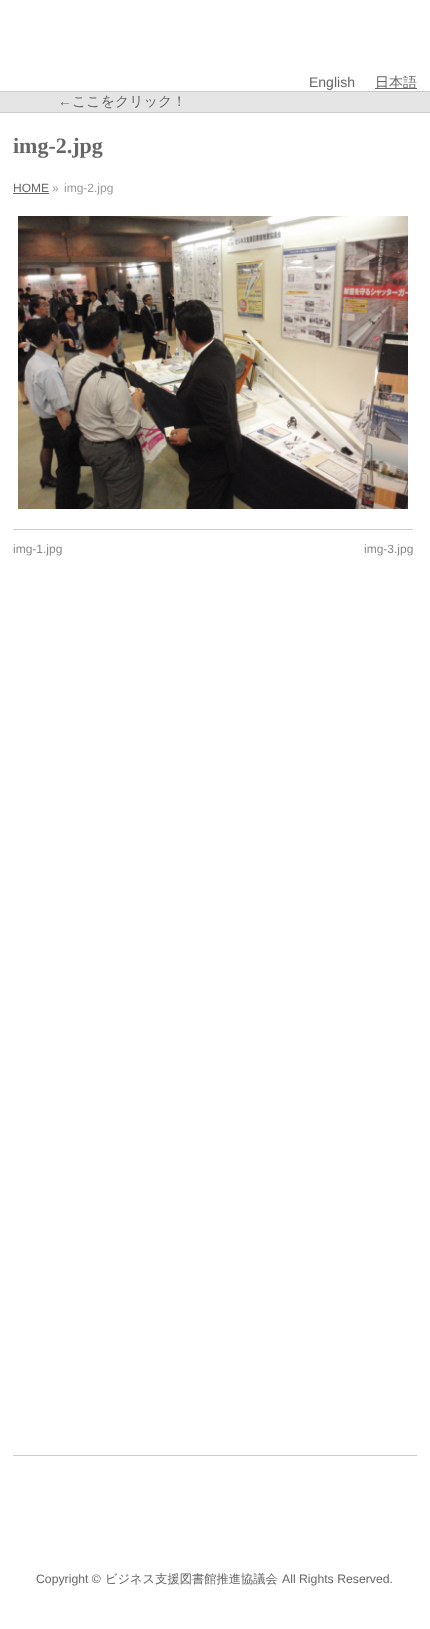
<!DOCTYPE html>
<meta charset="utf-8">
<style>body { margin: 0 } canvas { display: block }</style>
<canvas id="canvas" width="430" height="1629"></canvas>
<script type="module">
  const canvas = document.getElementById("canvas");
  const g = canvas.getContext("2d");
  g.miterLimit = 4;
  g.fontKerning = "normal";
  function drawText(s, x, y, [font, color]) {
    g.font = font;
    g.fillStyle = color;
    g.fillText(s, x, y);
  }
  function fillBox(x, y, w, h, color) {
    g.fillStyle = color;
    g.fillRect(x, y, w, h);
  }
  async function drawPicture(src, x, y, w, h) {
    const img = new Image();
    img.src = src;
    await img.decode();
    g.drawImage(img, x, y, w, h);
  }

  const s1 = ["14px Liberation Sans", "#666666"];
  const s2 = ["500 14px WenQuanYi Zen Hei", "#666666"];
  const s3 = ["bold 22px Liberation Serif", "#666666"];
  const s4 = ["12px Liberation Sans", "#666666"];
  const s5 = ["12px Liberation Sans", "#999999"];
  const s6 = ["12px Liberation Sans", "#888888"];
  const s7 = ["12.25px Liberation Sans", "#666666"];
  const s8 = ["500 12.25px WenQuanYi Zen Hei", "#666666"];

  fillBox(0, 0, 430, 1629, "#FFFFFF");
  drawText("English", 309, 87, s1);
  fillBox(375, 88, 42, 1, "#666666");
  drawText("日本語", 375, 87, s2);
  fillBox(0, 91, 430, 1, "#CCCCCC");
  fillBox(0, 112, 430, 1, "#CCCCCC");
  fillBox(0, 92, 430, 20, "#E5E5E5");
  drawText("←", 58, 106, s1);
  drawText("ここをクリック！", 72, 106, s2);
  drawText("img-2.jpg", 13, 153, s3);
  drawText("HOME", 13, 192, s4);
  fillBox(13, 193, 36, 1, "#666666");
  drawText("»", 52, 192, s5);
  drawText("img-2.jpg", 64, 192, s5);
  await drawPicture("pic1.png", 18, 216, 390, 293);
  fillBox(13, 529, 400, 1, "#CCCCCC");
  drawText("img-1.jpg", 13, 553, s6);
  drawText("img-3.jpg", 364, 553, s6);
  fillBox(13, 1455, 404, 1, "#CCCCCC");
  drawText("Copyright ©", 36, 1583, s7);
  drawText("ビジネス支援図書館推進協議会", 105, 1583, s8);
  drawText("All Rights Reserved.", 282, 1583, s7);
</script>
